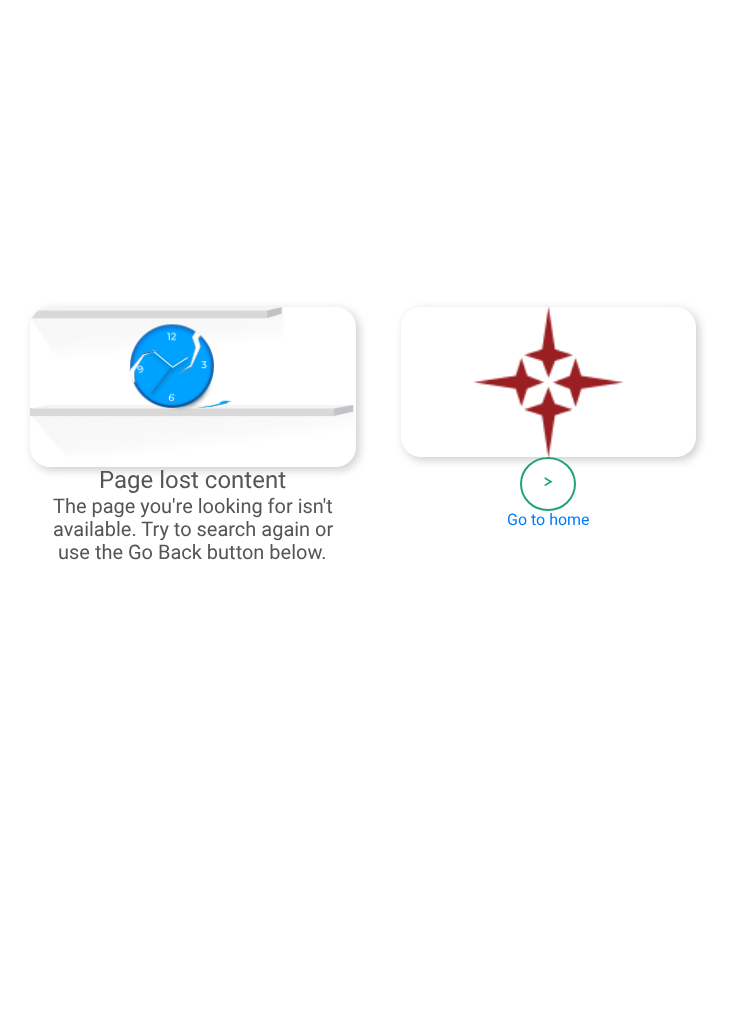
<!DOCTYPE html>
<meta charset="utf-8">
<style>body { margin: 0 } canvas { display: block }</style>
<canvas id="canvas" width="741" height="1024"></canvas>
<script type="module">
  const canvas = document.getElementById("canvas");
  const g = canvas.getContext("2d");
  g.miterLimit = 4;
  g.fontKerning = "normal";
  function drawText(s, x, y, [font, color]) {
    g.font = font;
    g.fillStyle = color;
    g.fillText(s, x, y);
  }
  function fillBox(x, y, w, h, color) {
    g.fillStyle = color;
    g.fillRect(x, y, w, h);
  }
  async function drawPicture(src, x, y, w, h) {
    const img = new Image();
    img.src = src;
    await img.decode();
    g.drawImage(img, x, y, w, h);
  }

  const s1 = ["24px Roboto", "#555555"];
  const s2 = ["20px Roboto", "#555555"];
  const s3 = ["18px Josefin Sans", "#21A179"];
  const s4 = ["16px Roboto", "#007BFF"];

  fillBox(0, 0, 741, 1024, "#FFFFFF");
  g.save();
  g.beginPath();
  g.moveTo(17, 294);
  g.lineTo(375, 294);
  g.lineTo(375, 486);
  g.lineTo(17, 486);
  g.closePath();
  g.moveTo(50, 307);
  g.lineTo(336, 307);
  g.bezierCurveTo(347, 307, 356, 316, 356, 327);
  g.lineTo(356, 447);
  g.bezierCurveTo(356, 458, 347, 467, 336, 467);
  g.lineTo(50, 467);
  g.bezierCurveTo(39, 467, 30, 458, 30, 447);
  g.lineTo(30, 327);
  g.bezierCurveTo(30, 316, 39, 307, 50, 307);
  g.closePath();
  g.clip("evenodd");
  g.fillStyle = "#CCCCCC";
  g.filter = "blur(5px)";
  g.beginPath();
  g.roundRect(33, 310, 326, 160, 20);
  g.fill();
  g.filter = "none";
  g.restore();
  await drawPicture("pic1.png", 30, 307, 325, 150);
  drawText("Page lost content", 99, 488, s1);
  drawText("The page you're looking for isn't", 53, 513, s2);
  drawText("available. Try to search again or", 53, 536, s2);
  drawText("use the Go Back button below.", 58, 559, s2);
  g.save();
  g.beginPath();
  g.moveTo(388, 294);
  g.lineTo(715, 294);
  g.lineTo(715, 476);
  g.lineTo(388, 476);
  g.closePath();
  g.moveTo(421, 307);
  g.lineTo(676, 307);
  g.bezierCurveTo(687, 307, 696, 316, 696, 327);
  g.lineTo(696, 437);
  g.bezierCurveTo(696, 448, 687, 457, 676, 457);
  g.lineTo(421, 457);
  g.bezierCurveTo(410, 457, 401, 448, 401, 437);
  g.lineTo(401, 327);
  g.bezierCurveTo(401, 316, 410, 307, 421, 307);
  g.closePath();
  g.clip("evenodd");
  g.fillStyle = "#CCCCCC";
  g.filter = "blur(5px)";
  g.beginPath();
  g.roundRect(404, 310, 295, 150, 20);
  g.fill();
  g.filter = "none";
  g.restore();
  await drawPicture("pic2.png", 473, 307, 151, 150);
  g.fillStyle = "#FFFFFF";
  g.beginPath();
  g.ellipse(548, 484, 28, 27, 0, 0, Math.PI * 2);
  g.fill();
  g.beginPath();
  g.moveTo(548, 458);
  g.bezierCurveTo(563, 458, 575, 469.5, 575, 484);
  g.bezierCurveTo(575, 498.5, 563, 510, 548, 510);
  g.bezierCurveTo(533, 510, 521, 498.5, 521, 484);
  g.bezierCurveTo(521, 469.5, 533, 458, 548, 458);
  g.closePath();
  g.strokeStyle = "#21A179";
  g.lineWidth = 2;
  g.stroke();
  drawText(">", 543, 486, s3);
  drawText("Go to home", 507, 525, s4);
</script>
